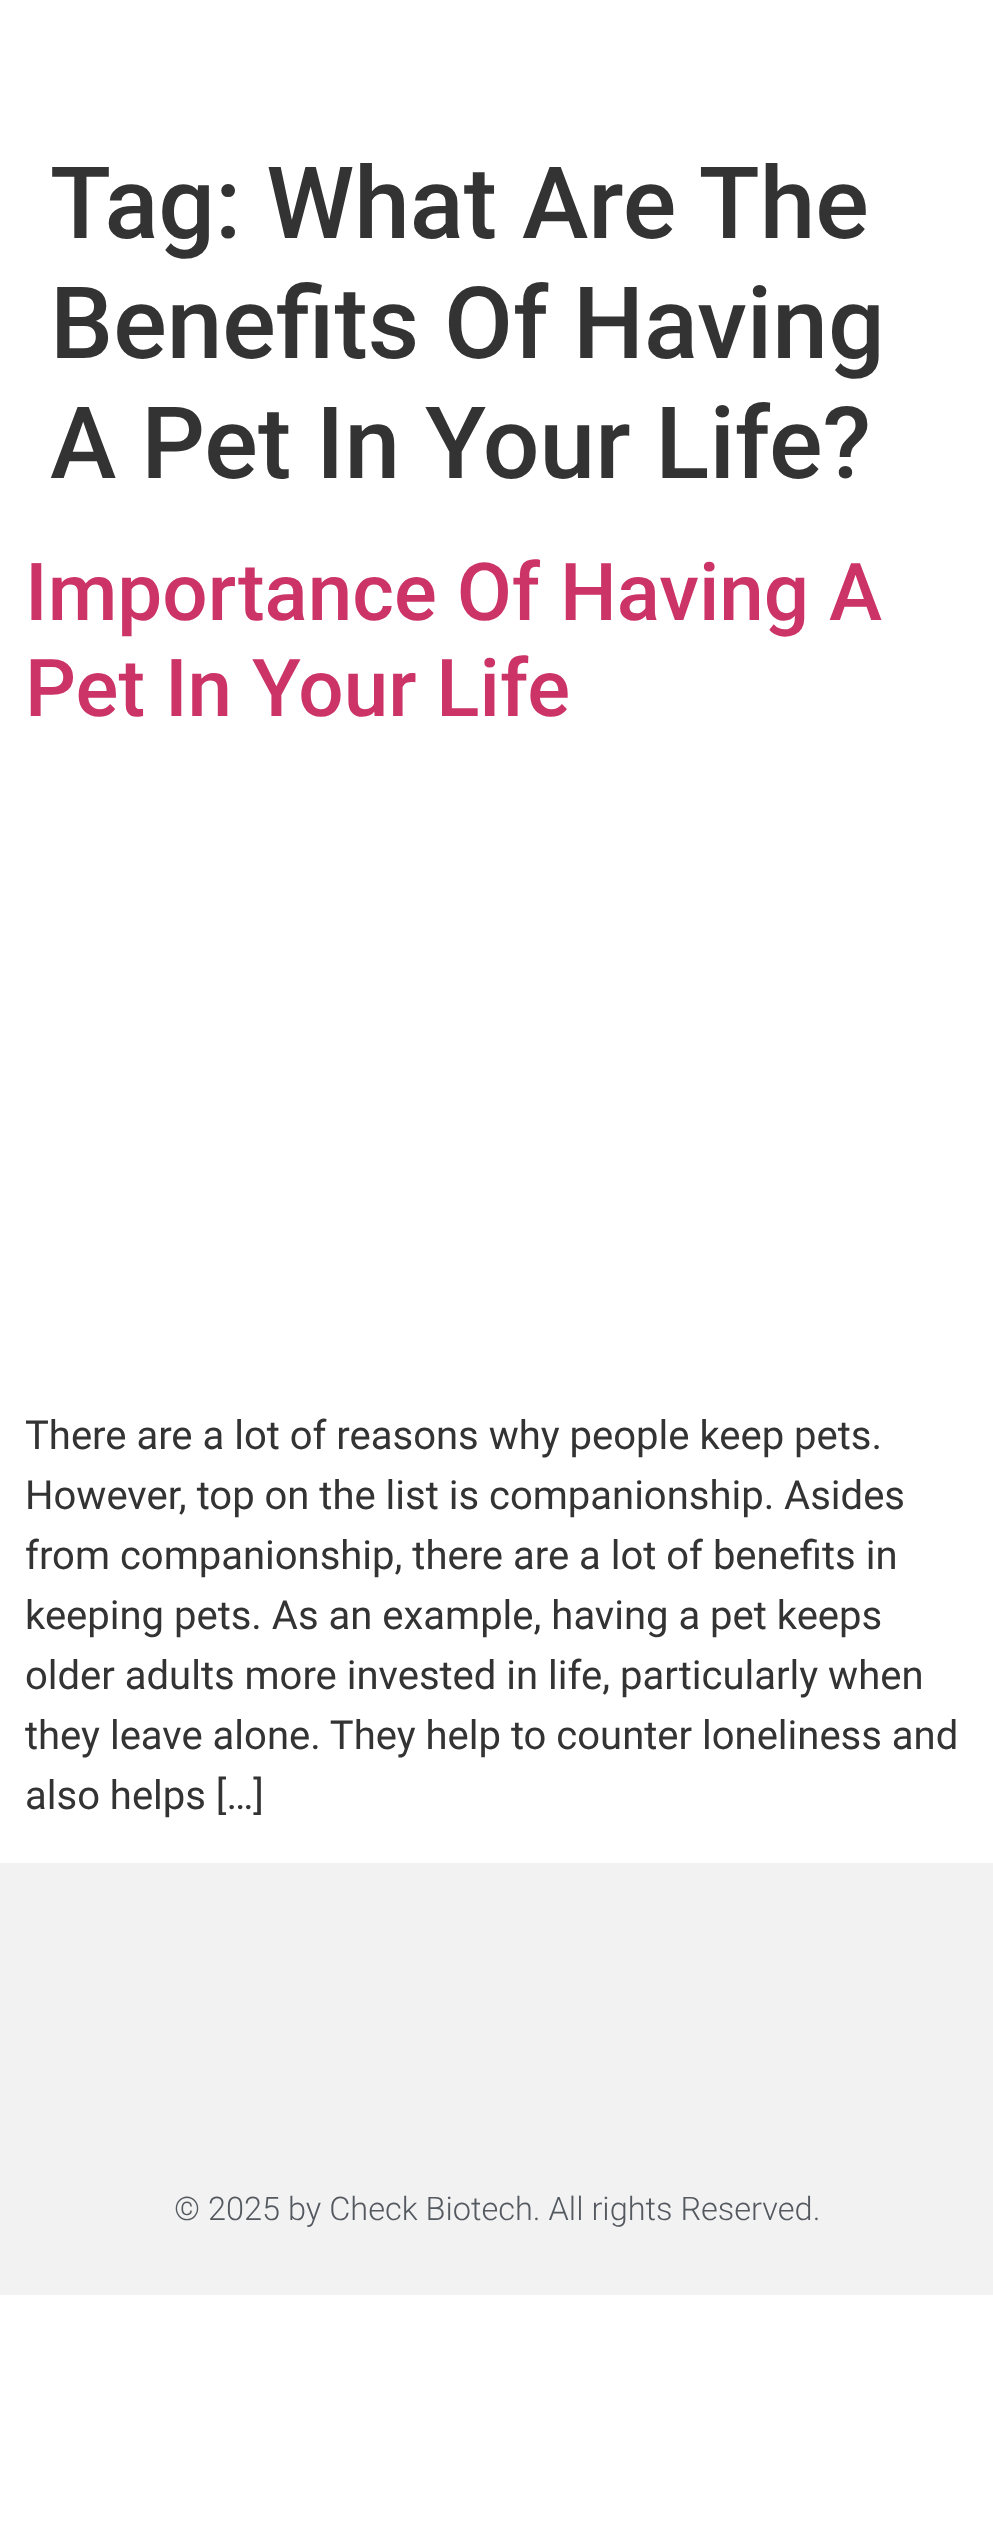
<!DOCTYPE html>
<meta charset="utf-8">
<style>body { margin: 0 } canvas { display: block }</style>
<canvas id="canvas" width="993" height="2541"></canvas>
<script type="module">
  const canvas = document.getElementById("canvas");
  const g = canvas.getContext("2d");
  g.miterLimit = 4;
  g.fontKerning = "normal";
  function drawText(s, x, y, [font, color]) {
    g.font = font;
    g.fillStyle = color;
    g.fillText(s, x, y);
  }
  function fillBox(x, y, w, h, color) {
    g.fillStyle = color;
    g.fillRect(x, y, w, h);
  }

  const s1 = ["500 100px Roboto", "#333333"];
  const s2 = ["500 80px Roboto", "#CC3366"];
  const s3 = ["40px Roboto", "#333333"];
  const s4 = ["300 32.5px Roboto", "#54595F"];

  fillBox(0, 0, 993, 2541, "#FFFFFF");
  drawText("Tag: What Are The", 50, 238, s1);
  drawText("Benefits Of Having", 50, 358, s1);
  drawText("A Pet In Your Life?", 50, 478, s1);
  drawText("Importance Of Having A", 25, 620, s2);
  drawText("Pet In Your Life", 25, 716, s2);
  drawText("There are a lot of reasons why people keep pets.", 25, 1449, s3);
  drawText("However, top on the list is companionship. Asides", 25, 1509, s3);
  drawText("from companionship, there are a lot of benefits in", 25, 1569, s3);
  drawText("keeping pets. As an example, having a pet keeps", 25, 1629, s3);
  drawText("older adults more invested in life, particularly when", 25, 1689, s3);
  drawText("they leave alone. They help to counter loneliness and", 25, 1749, s3);
  drawText("also helps […]", 25, 1809, s3);
  fillBox(0, 1863, 993, 432, "#F2F2F2");
  drawText("© 2025 by Check Biotech. All rights Reserved.", 174, 2220, s4);
</script>
